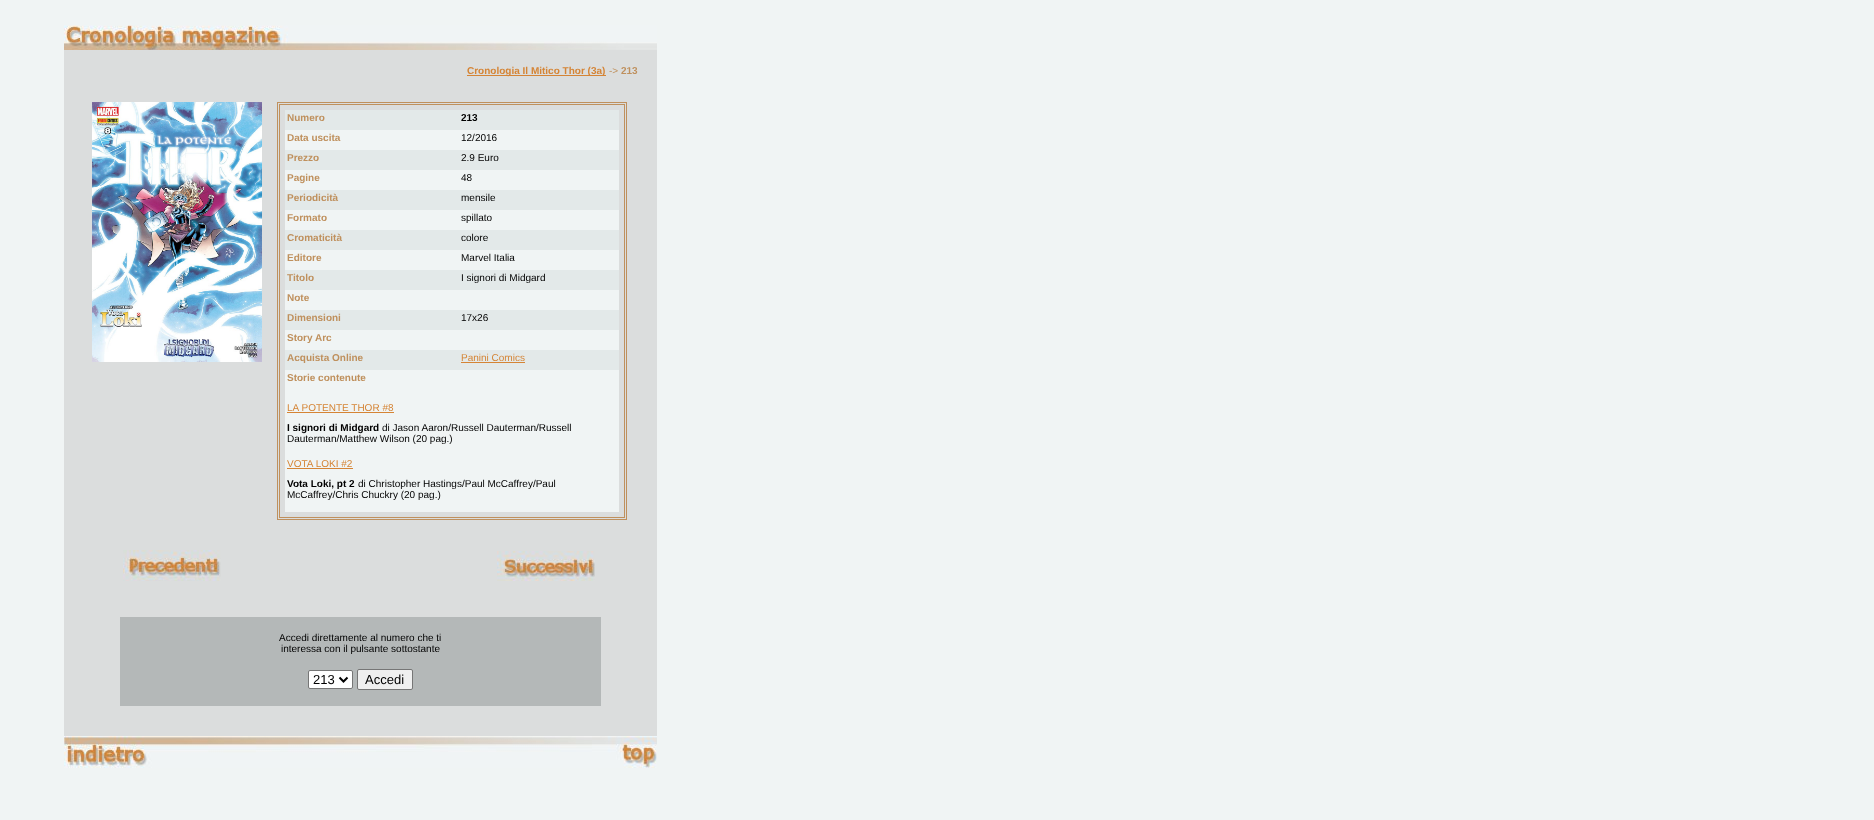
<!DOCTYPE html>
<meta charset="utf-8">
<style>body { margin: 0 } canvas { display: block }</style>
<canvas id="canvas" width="1874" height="820"></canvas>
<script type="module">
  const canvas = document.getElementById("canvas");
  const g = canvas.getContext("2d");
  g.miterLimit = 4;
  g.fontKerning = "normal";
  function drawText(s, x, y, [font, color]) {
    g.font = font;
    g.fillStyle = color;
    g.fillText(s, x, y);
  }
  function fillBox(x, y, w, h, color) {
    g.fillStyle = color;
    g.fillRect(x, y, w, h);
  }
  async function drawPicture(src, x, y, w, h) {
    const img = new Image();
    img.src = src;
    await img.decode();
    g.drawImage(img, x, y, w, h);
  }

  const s1 = ["bold 10px Liberation Sans", "#D58435"];
  const s2 = ["10px Liberation Sans", "#BF905D"];
  const s3 = ["bold 10px Liberation Sans", "#BF905D"];
  const s4 = ["bold 10px Liberation Sans", "#000000"];
  const s5 = ["10px Liberation Sans", "#000000"];
  const s6 = ["10px Liberation Sans", "#D58435"];
  const s7 = ["13px Liberation Sans", "#000000"];

  fillBox(0, 0, 1874, 820, "#F0F4F4");
  await drawPicture("pic1.png", 64, 25, 593, 25);
  fillBox(64, 50, 593, 15, "#DBDDDD");
  fillBox(64, 65, 593, 552, "#DBDDDD");
  fillBox(467, 75, 139, 1, "#D58435");
  drawText("Cronologia Il Mitico Thor (3a)", 467, 74, s1);
  drawText("->", 609, 74, s2);
  drawText("213", 621, 74, s3);
  await drawPicture("pic2.png", 92, 102, 170, 260);
  g.strokeStyle = "#BF905D";
  g.strokeRect(277.5, 102.5, 349, 417);
  g.strokeRect(279.5, 104.5, 345, 413);
  fillBox(285, 110, 334, 20, "#E3E9E9");
  drawText("Numero", 287, 121, s3);
  drawText("213", 461, 121, s4);
  fillBox(285, 130, 334, 20, "#F0F4F4");
  drawText("Data uscita", 287, 141, s3);
  drawText("12/2016", 461, 141, s5);
  fillBox(285, 150, 334, 20, "#E3E9E9");
  drawText("Prezzo", 287, 161, s3);
  drawText("2.9 Euro", 461, 161, s5);
  fillBox(285, 170, 334, 20, "#F0F4F4");
  drawText("Pagine", 287, 181, s3);
  drawText("48", 461, 181, s5);
  fillBox(285, 190, 334, 20, "#E3E9E9");
  drawText("Periodicità", 287, 201, s3);
  drawText("mensile", 461, 201, s5);
  fillBox(285, 210, 334, 20, "#F0F4F4");
  drawText("Formato", 287, 221, s3);
  drawText("spillato", 461, 221, s5);
  fillBox(285, 230, 334, 20, "#E3E9E9");
  drawText("Cromaticità", 287, 241, s3);
  drawText("colore", 461, 241, s5);
  fillBox(285, 250, 334, 20, "#F0F4F4");
  drawText("Editore", 287, 261, s3);
  drawText("Marvel Italia", 461, 261, s5);
  fillBox(285, 270, 334, 20, "#E3E9E9");
  drawText("Titolo", 287, 281, s3);
  drawText("I signori di Midgard", 461, 281, s5);
  fillBox(285, 290, 334, 20, "#F0F4F4");
  drawText("Note", 287, 301, s3);
  fillBox(285, 310, 334, 20, "#E3E9E9");
  drawText("Dimensioni", 287, 321, s3);
  drawText("17x26", 461, 321, s5);
  fillBox(285, 330, 334, 20, "#F0F4F4");
  drawText("Story Arc", 287, 341, s3);
  fillBox(285, 350, 334, 20, "#E3E9E9");
  drawText("Acquista Online", 287, 361, s3);
  drawText("Panini Comics", 461, 361, s6);
  fillBox(461, 362, 64, 1, "#D58435");
  fillBox(285, 370, 334, 142, "#F0F4F4");
  drawText("Storie contenute", 287, 381, s3);
  drawText("LA POTENTE THOR #8", 287, 411, s6);
  fillBox(287, 412, 107, 1, "#D58435");
  drawText("I signori di Midgard", 287, 431, s4);
  drawText("di Jason Aaron/Russell Dauterman/Russell", 382, 431, s5);
  drawText("Dauterman/Matthew Wilson (20 pag.)", 287, 442, s5);
  drawText("VOTA LOKI #2", 287, 467, s6);
  fillBox(287, 468, 66, 1, "#D58435");
  drawText("Vota Loki, pt 2", 287, 487, s4);
  drawText("di Christopher Hastings/Paul McCaffrey/Paul", 358, 487, s5);
  drawText("McCaffrey/Chris Chuckry (20 pag.)", 287, 498, s5);
  await drawPicture("pic3.png", 123, 550, 98, 31);
  await drawPicture("pic4.png", 497, 551, 98, 30);
  fillBox(64, 617, 56, 89, "#DBDDDD");
  fillBox(120, 617, 481, 89, "#B4B8B8");
  fillBox(601, 617, 56, 89, "#DBDDDD");
  drawText("Accedi direttamente al numero che ti", 279, 641, s5);
  drawText("interessa con il pulsante sottostante", 281, 652, s5);
  g.fillStyle = "#FFFFFF";
  g.beginPath();
  g.roundRect(308.5, 670.5, 44, 18, 1.5);
  g.fill();
  g.strokeStyle = "#767676";
  g.stroke();
  g.beginPath();
  g.moveTo(339.5, 677.5);
  g.lineTo(343.5, 681.5);
  g.lineTo(347.5, 677.5);
  g.strokeStyle = "#000000";
  g.lineWidth = 2;
  g.stroke();
  drawText("213", 313, 684, s7);
  g.fillStyle = "#EFEFEF";
  g.beginPath();
  g.roundRect(357.5, 669.5, 55, 20, 1.5);
  g.fill();
  g.strokeStyle = "#767676";
  g.lineWidth = 1;
  g.stroke();
  drawText("Accedi", 365, 684, s7);
  fillBox(64, 706, 593, 30, "#DBDDDD");
  await drawPicture("pic5.png", 64, 736, 593, 32);
</script>
